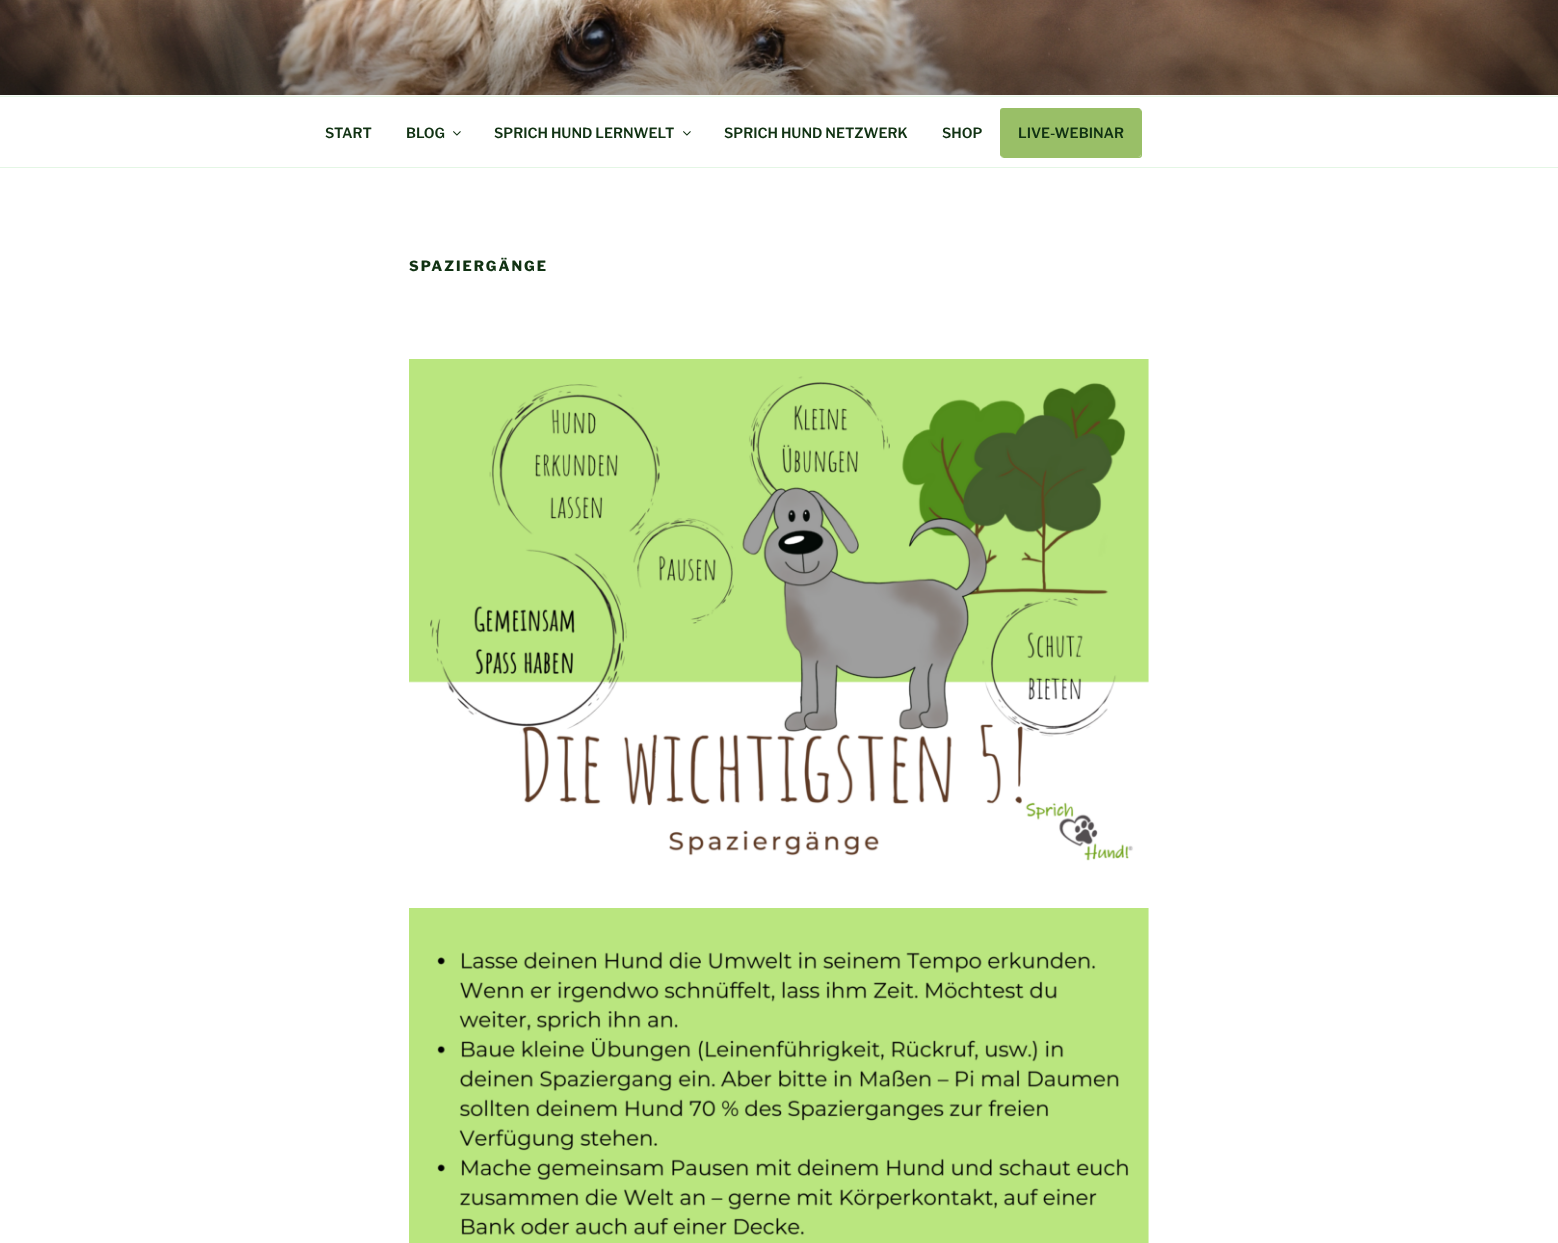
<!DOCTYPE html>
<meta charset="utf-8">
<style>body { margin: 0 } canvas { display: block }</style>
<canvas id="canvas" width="1558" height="1243"></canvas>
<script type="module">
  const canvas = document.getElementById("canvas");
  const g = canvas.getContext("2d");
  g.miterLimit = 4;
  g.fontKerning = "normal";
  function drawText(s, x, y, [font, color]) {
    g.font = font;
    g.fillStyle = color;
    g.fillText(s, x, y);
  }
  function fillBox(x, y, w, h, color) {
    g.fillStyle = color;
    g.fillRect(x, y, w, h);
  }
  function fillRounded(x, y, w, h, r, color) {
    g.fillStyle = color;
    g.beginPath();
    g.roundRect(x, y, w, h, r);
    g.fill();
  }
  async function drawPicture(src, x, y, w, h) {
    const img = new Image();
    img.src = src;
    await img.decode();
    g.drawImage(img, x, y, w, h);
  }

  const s1 = ["100 14px 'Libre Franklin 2'", "#113213"];
  const s2 = ["100 14px Libre Franklin", "#113213"];

  fillBox(0, 0, 1558, 1243, "#FFFFFF");
  fillBox(0, 95, 1558, 1, "#F7FCF8");
  await drawPicture("pic1.png", 0, 0, 1558, 95);
  fillBox(0, 96, 1558, 1, "#E4F6E5");
  fillBox(0, 167, 1558, 1, "#E4F6E5");
  drawText("START", 325, 138, s1);
  drawText("BLOG", 406, 138, s1);
  await drawPicture("pic2.png", 453, 131, 8, 5);
  drawText("SPRICH HUND LERNWELT", 494, 138, s1);
  await drawPicture("pic2.png", 683, 131, 8, 5);
  drawText("SPRICH HUND NETZWERK", 724, 138, s1);
  drawText("SHOP", 942, 138, s1);
  g.fillStyle = "#99BF67";
  g.beginPath();
  g.moveTo(1001, 157);
  g.bezierCurveTo(1002, 157, 1003, 158, 1004, 158);
  g.lineTo(1139, 158);
  g.bezierCurveTo(1141, 158, 1142, 157, 1142, 155);
  g.lineTo(1142, 112);
  g.bezierCurveTo(1142, 111, 1141, 110, 1141, 109);
  g.lineTo(1141, 111);
  g.lineTo(1141, 154);
  g.bezierCurveTo(1141, 156, 1140, 157, 1138, 157);
  g.lineTo(1003, 157);
  g.closePath();
  g.fill();
  fillRounded(1000, 108, 141, 49, 3, "#99BF67");
  drawText("LIVE-WEBINAR", 1018, 138, s1);
  g.letterSpacing = "2px";
  drawText("SPAZIERGÄNGE", 409, 271, s2);
  await drawPicture("pic3.png", 409, 359, 740, 502);
  await drawPicture("pic4.png", 409, 908, 740, 335);
</script>
